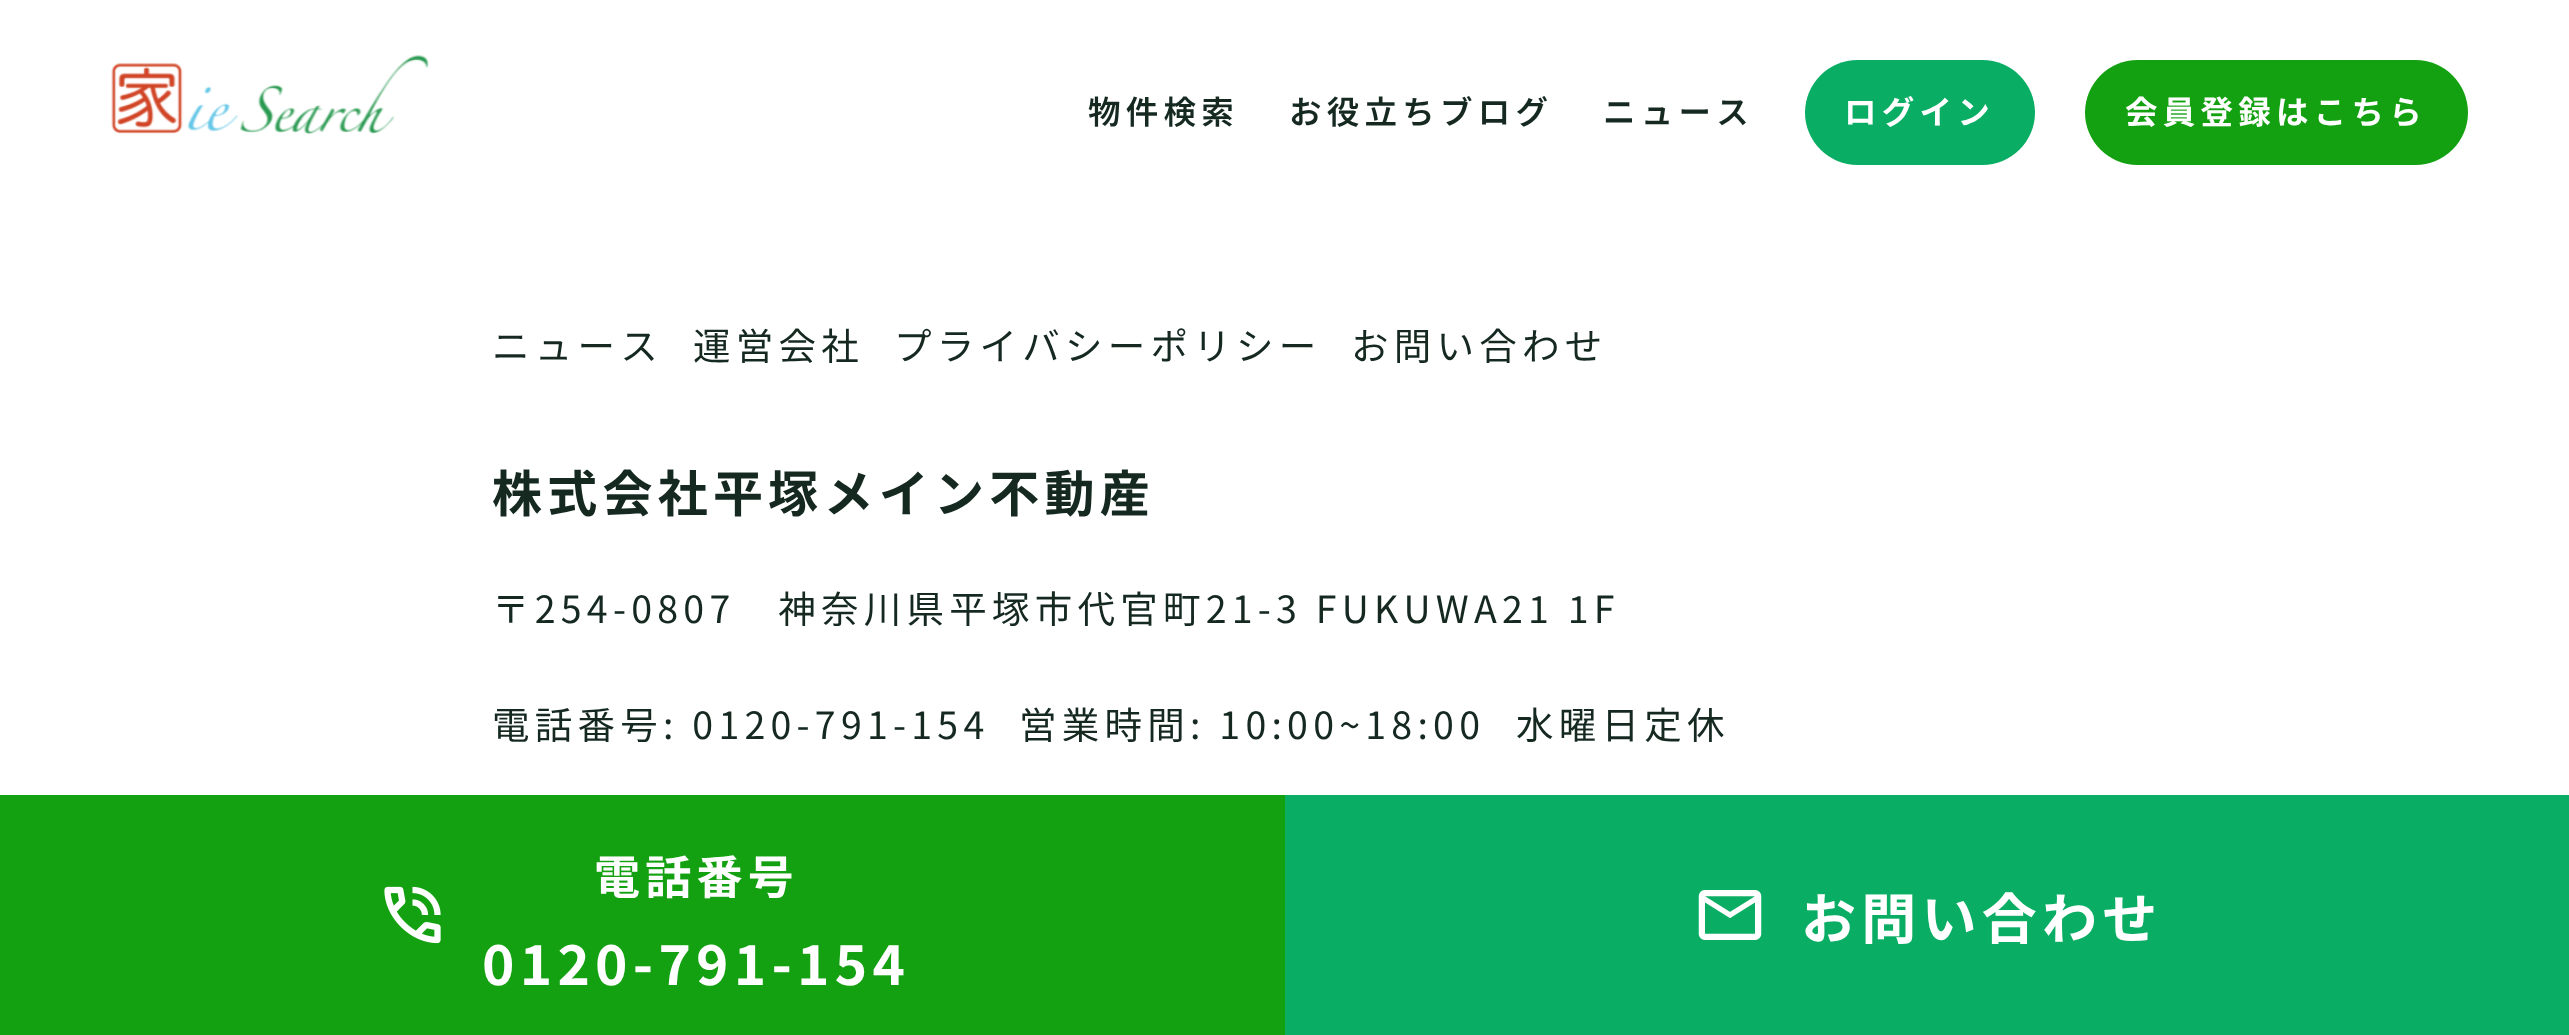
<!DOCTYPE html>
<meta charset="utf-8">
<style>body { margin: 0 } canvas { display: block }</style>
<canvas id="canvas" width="2569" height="1035"></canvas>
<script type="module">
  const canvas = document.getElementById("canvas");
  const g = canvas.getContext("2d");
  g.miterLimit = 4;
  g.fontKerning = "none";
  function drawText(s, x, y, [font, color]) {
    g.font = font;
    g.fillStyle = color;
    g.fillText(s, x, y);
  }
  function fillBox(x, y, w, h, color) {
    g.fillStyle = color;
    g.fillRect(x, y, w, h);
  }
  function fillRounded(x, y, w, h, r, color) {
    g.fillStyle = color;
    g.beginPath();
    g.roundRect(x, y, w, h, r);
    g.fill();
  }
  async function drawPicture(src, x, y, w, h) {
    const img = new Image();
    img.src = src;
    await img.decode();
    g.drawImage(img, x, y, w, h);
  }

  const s1 = ["600 32.5px Noto Sans JP", "#152921"];
  const s2 = ["bold 32.5px Noto Sans JP", "#FFFFFF"];
  const s3 = ["37.5px Noto Sans JP", "#152921"];
  const s4 = ["bold 50px Noto Sans JP", "#152921"];
  const s5 = ["bold 46px Noto Sans JP", "#FFFFFF"];
  const s6 = ["bold 55px Noto Sans JP", "#FFFFFF"];

  fillBox(0, 0, 2569, 1035, "#FFFFFF");
  await drawPicture("pic1.png", 111, 55, 318, 80);
  g.letterSpacing = "5.25px";
  drawText("物件検索", 1088, 124, s1);
  drawText("お役立ちブログ", 1289, 124, s1);
  drawText("ニュース", 1603, 124, s1);
  fillRounded(1805, 60, 230, 105, 52.5, "#0AAD64");
  drawText("ログイン", 1844, 124, s2);
  fillRounded(2085, 60, 383, 105, 52.5, "#14A111");
  drawText("会員登録はこちら", 2125, 124, s2);
  drawText("ニュース", 492, 360, s3);
  drawText("運営会社", 693, 360, s3);
  drawText("プライバシーポリシー", 894, 360, s3);
  drawText("お問い合わせ", 1351, 360, s3);
  drawText("株式会社平塚メイン不動産", 492, 512, s4);
  drawText("〒254-0807　神奈川県平塚市代官町21-3 FUKUWA21 1F", 492, 623, s3);
  drawText("電話番号: 0120-791-154", 492, 739, s3);
  drawText("営業時間: 10:00~18:00", 1019, 739, s3);
  drawText("水曜日定休", 1516, 739, s3);
  fillBox(0, 795, 1285, 240, "#14A111");
  await drawPicture("pic2.png", 384, 886, 57, 58);
  drawText("電話番号", 594, 894, s5);
  drawText("0120-791-154", 482, 985, s6);
  fillBox(1285, 795, 1284, 240, "#0AAD64");
  await drawPicture("pic3.png", 1698, 890, 64, 50);
  drawText("お問い合わせ", 1801, 939, s6);
</script>
